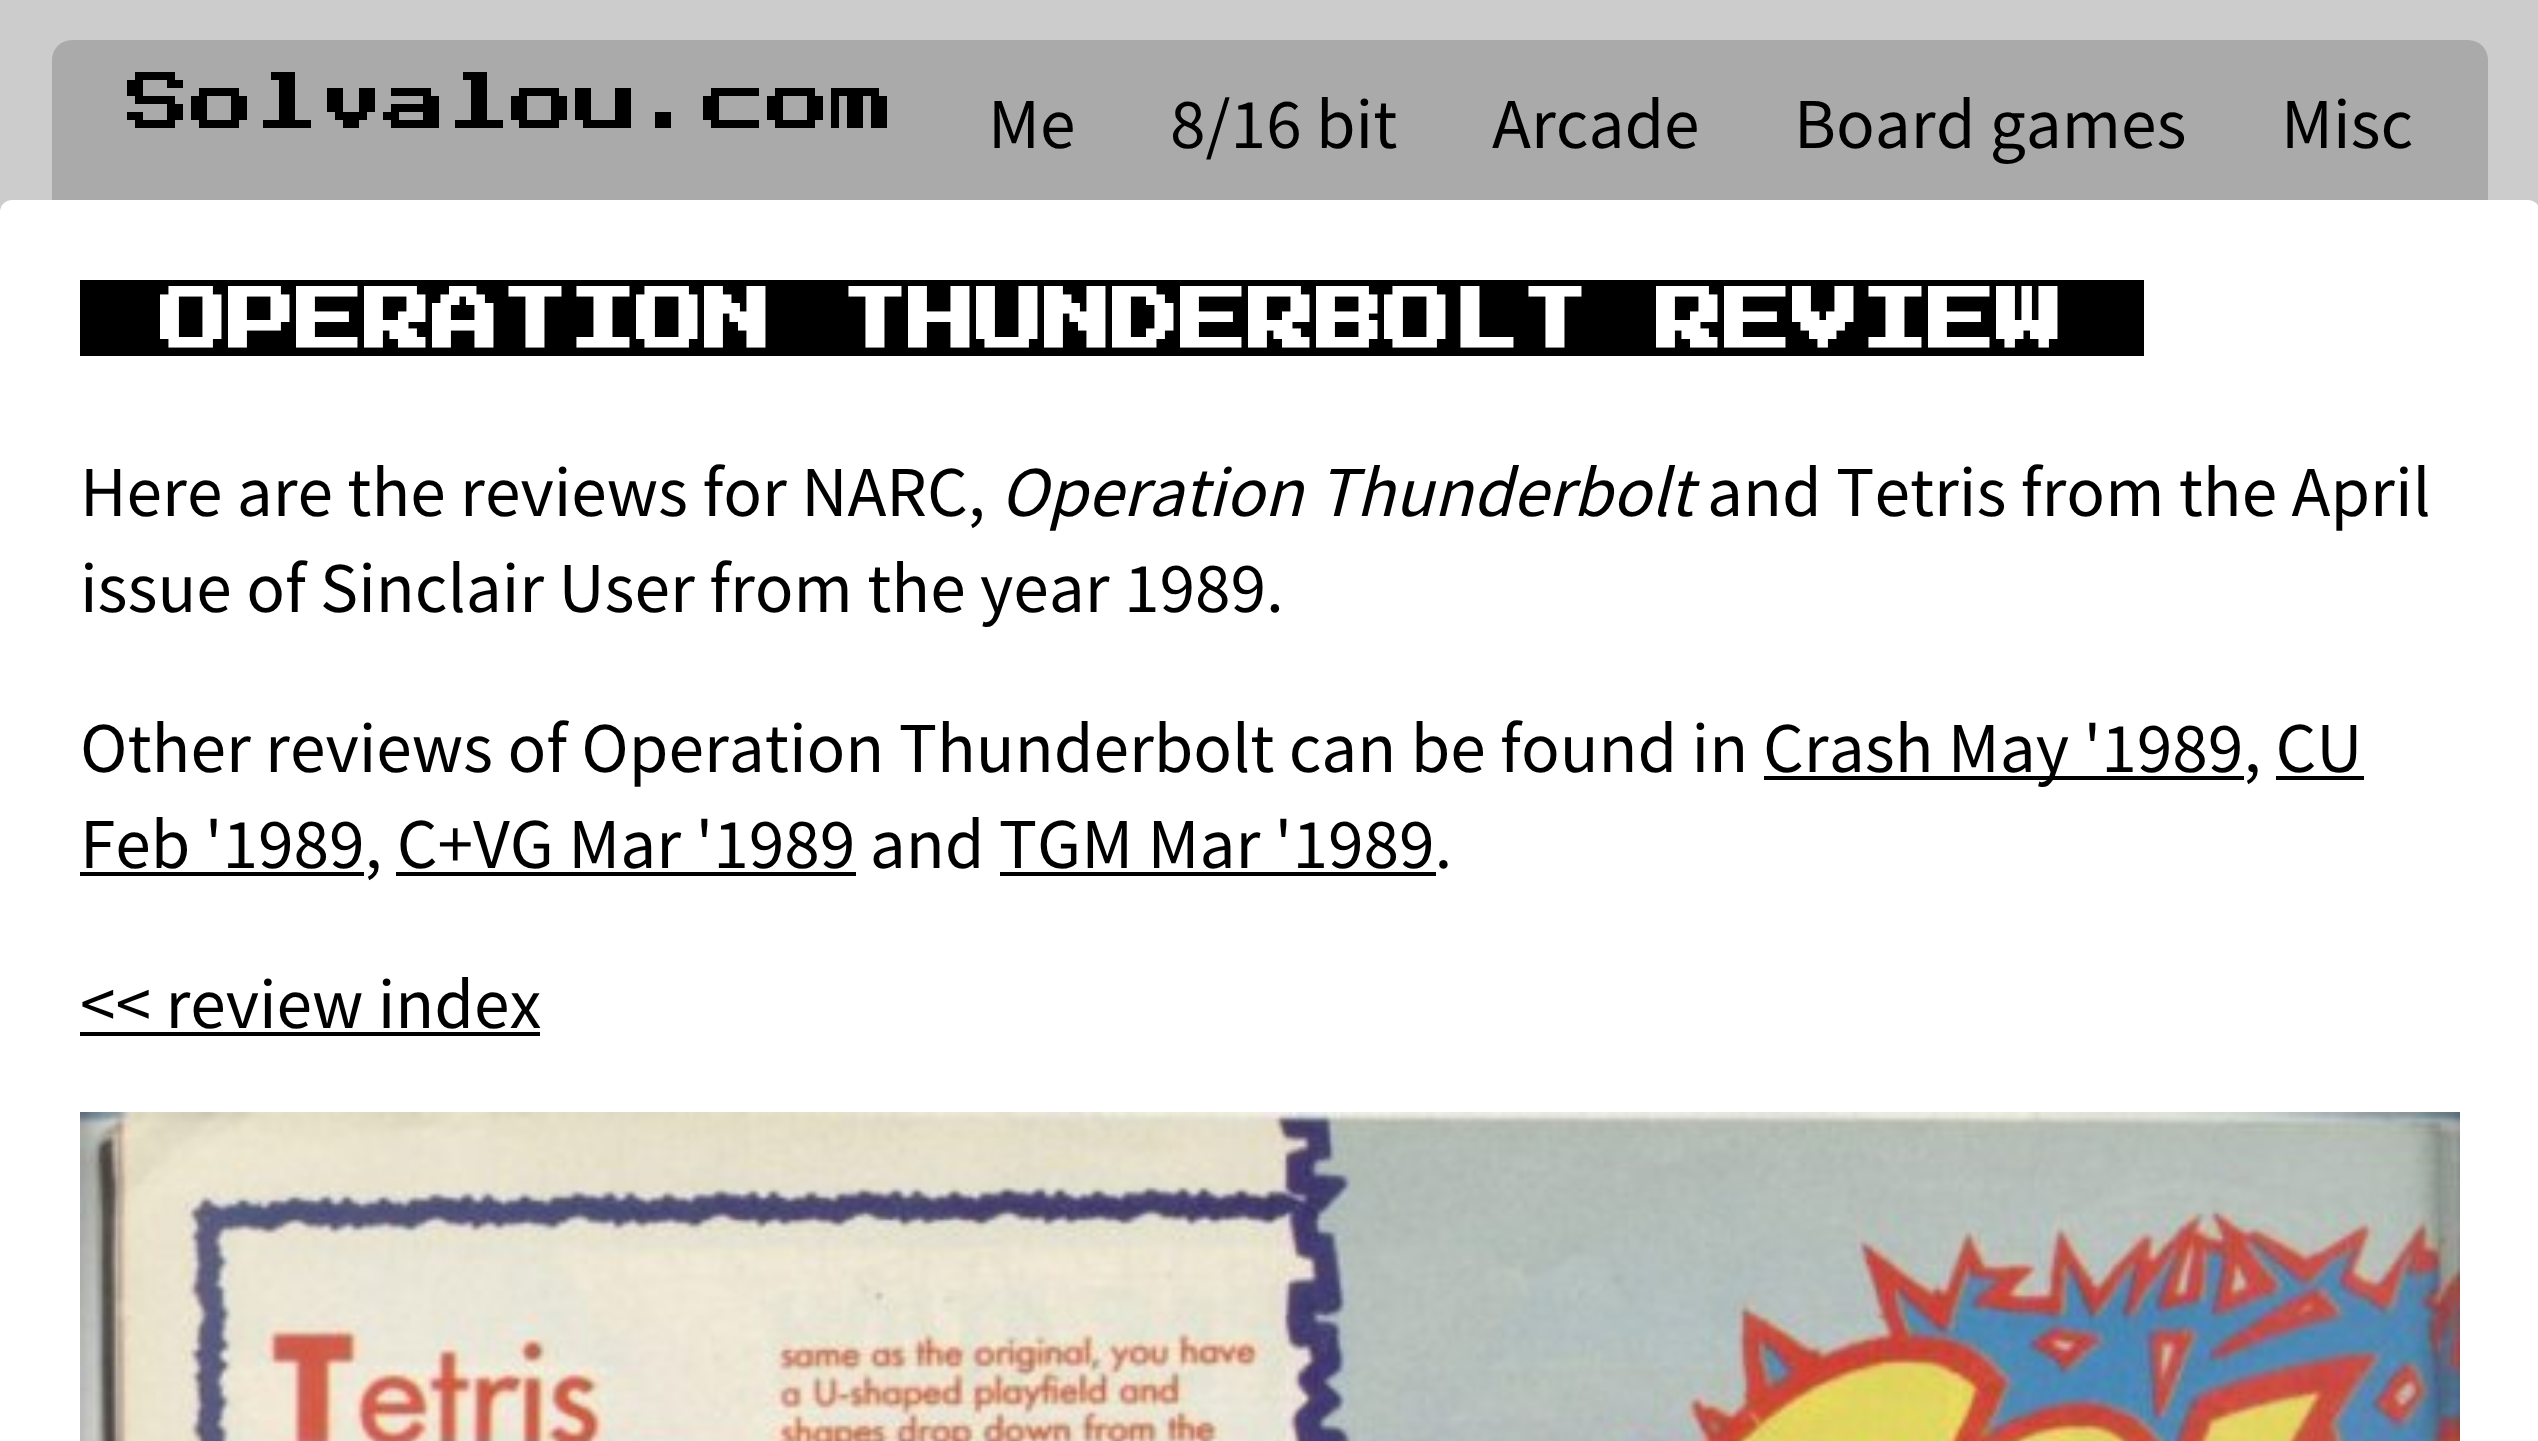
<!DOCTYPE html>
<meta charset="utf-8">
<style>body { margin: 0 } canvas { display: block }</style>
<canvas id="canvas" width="2538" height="1441"></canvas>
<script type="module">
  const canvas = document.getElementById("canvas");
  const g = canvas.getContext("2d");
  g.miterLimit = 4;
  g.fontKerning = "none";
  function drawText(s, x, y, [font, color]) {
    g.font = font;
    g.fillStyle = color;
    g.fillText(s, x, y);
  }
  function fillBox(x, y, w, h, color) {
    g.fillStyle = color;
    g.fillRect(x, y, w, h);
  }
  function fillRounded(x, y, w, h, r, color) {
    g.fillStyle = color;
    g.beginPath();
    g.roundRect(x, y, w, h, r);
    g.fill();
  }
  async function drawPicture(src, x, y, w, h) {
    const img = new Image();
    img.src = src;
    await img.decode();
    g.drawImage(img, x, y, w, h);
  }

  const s1 = ["64px 'Press Start 2P'", "#000000"];
  const s2 = ["64px Noto Sans TC", "#000000"];
  const s3 = ["bold 68px 'Press Start 2P'", "#FFFFFF"];
  const s4 = ["italic 64px Noto Sans TC", "#000000"];

  fillBox(0, 0, 2538, 1441, "#CCCCCC");
  g.fillStyle = "#AAAAAA";
  g.beginPath();
  g.roundRect(52, 40, 2436, 160, [20, 20, 0, 0]);
  g.fill();
  drawText("Solvalou.com", 127, 136, s1);
  drawText("Me", 988, 148, s2);
  drawText("8/16 bit", 1170, 148, s2);
  drawText("Arcade", 1492, 148, s2);
  drawText("Board games", 1794, 148, s2);
  drawText("Misc", 2281, 148, s2);
  fillRounded(0, 200, 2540, 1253, 12, "#FFFFFF");
  fillBox(80, 280, 2064, 76, "#000000");
  drawText("OPERATION THUNDERBOLT REVIEW", 160, 356, s3);
  drawText("Here are the reviews for NARC,", 80, 516, s2);
  drawText("Operation Thunderbolt", 1000, 516, s4);
  drawText("and Tetris from the April", 1707, 516, s2);
  drawText("issue of Sinclair User from the year 1989.", 80, 612, s2);
  drawText("Other reviews of Operation Thunderbolt can be found in", 80, 772, s2);
  fillBox(1764, 776, 480, 4, "#000000");
  drawText("Crash May '1989, CU", 1763, 772, s2);
  fillBox(80, 872, 284, 4, "#000000");
  drawText("Feb '1989, C+VG Mar '1989 and TGM Mar '1989.", 80, 868, s2);
  fillBox(2276, 776, 88, 4, "#000000");
  fillBox(396, 872, 460, 4, "#000000");
  fillBox(1000, 872, 436, 4, "#000000");
  drawText("<< review index", 80, 1028, s2);
  fillBox(80, 1032, 460, 4, "#000000");
  await drawPicture("pic1.png", 80, 1112, 2380, 329);
</script>
